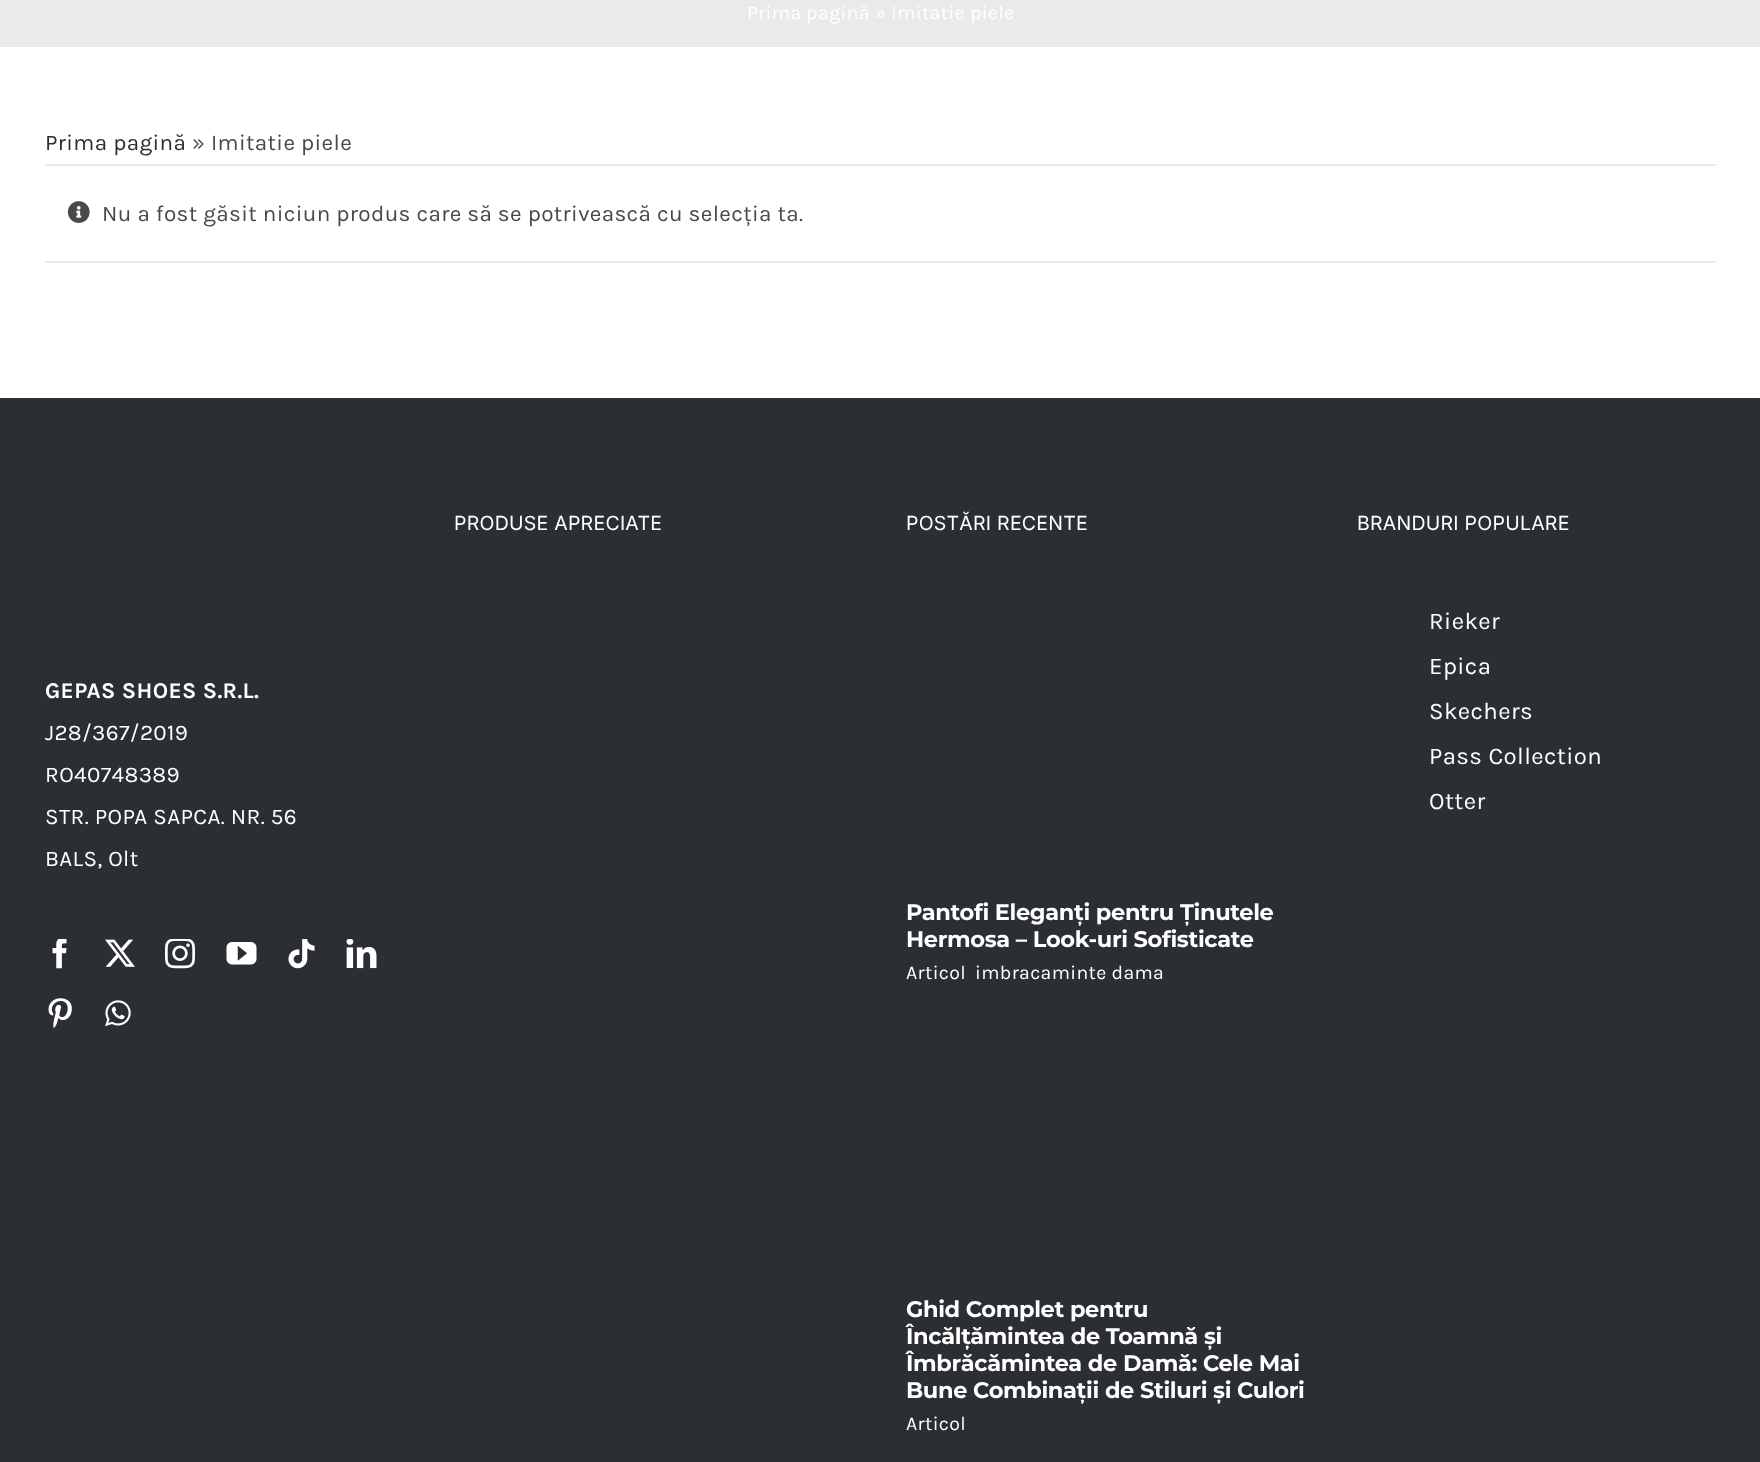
<!DOCTYPE html>
<meta charset="utf-8">
<style>body { margin: 0 } canvas { display: block }</style>
<canvas id="canvas" width="1760" height="1462"></canvas>
<script type="module">
  const canvas = document.getElementById("canvas");
  const g = canvas.getContext("2d");
  g.miterLimit = 4;
  g.fontKerning = "normal";
  function drawText(s, x, y, [font, color]) {
    g.font = font;
    g.fillStyle = color;
    g.fillText(s, x, y);
  }
  function fillBox(x, y, w, h, color) {
    g.fillStyle = color;
    g.fillRect(x, y, w, h);
  }
  async function drawPicture(src, x, y, w, h) {
    const img = new Image();
    img.src = src;
    await img.decode();
    g.drawImage(img, x, y, w, h);
  }

  const s1 = ["19.5px Karla", "#FFFFFF"];
  const s2 = ["22.5px Karla", "#2B2E32"];
  const s3 = ["22.5px Karla", "#494949"];
  const s4 = ["bold 22.5px Karla", "#FFFFFF"];
  const s5 = ["22.5px Karla", "#FFFFFF"];
  const s6 = ["19.5px Inter", "#FFFFFF"];
  const s7 = ["100 22.5px Montserrat", "#FFFFFF"];
  const s8 = ["24px Karla", "#FFFFFF"];

  fillBox(0, 0, 1760, 1462, "#FFFFFF");
  fillBox(0, 0, 1760, 47, "#EAEAEA");
  g.letterSpacing = "0.35px";
  drawText("Prima pagină » Imitatie piele", 747, 19, s1);
  drawText("Prima pagină", 45, 150, s2);
  drawText("» Imitatie piele", 192, 150, s3);
  fillBox(45, 164, 1671, 2, "#EAEAEA");
  fillBox(45, 261, 1671, 2, "#EAEAEA");
  await drawPicture("pic1.png", 67, 201, 23, 22);
  drawText("Nu a fost găsit niciun produs care să se potrivească cu selecția ta.", 102, 221, s3);
  fillBox(0, 398, 1760, 1064, "#2B2E32");
  drawText("GEPAS SHOES S.R.L.", 45, 698, s4);
  drawText("J28/367/2019", 45, 740, s5);
  drawText("RO40748389", 45, 782, s5);
  drawText("STR. POPA SAPCA. NR. 56", 45, 824, s5);
  drawText("BALS, Olt", 45, 866, s5);
  await drawPicture("pic2.png", 52, 939, 15, 30);
  await drawPicture("pic3.png", 105, 939, 30, 28);
  await drawPicture("pic4.png", 165, 939, 30, 30);
  await drawPicture("pic5.png", 226, 942, 31, 23);
  await drawPicture("pic6.png", 288, 939, 27, 30);
  await drawPicture("pic7.png", 346, 939, 31, 30);
  await drawPicture("pic8.png", 48, 998, 24, 31);
  await drawPicture("pic9.png", 105, 1000, 26, 27);
  g.letterSpacing = "0.25px";
  drawText("PRODUSE APRECIATE", 454, 530, s6);
  drawText("POSTĂRI RECENTE", 906, 530, s6);
  g.letterSpacing = "-0.35px";
  drawText("Pantofi Eleganți pentru Ținutele", 906, 920, s7);
  drawText("Hermosa – Look-uri Sofisticate", 906, 947, s7);
  g.letterSpacing = "0.35px";
  drawText("Articol", 906, 979, s1);
  drawText("imbracaminte dama", 975, 979, s1);
  g.letterSpacing = "-0.35px";
  drawText("Ghid Complet pentru", 906, 1317, s7);
  drawText("Încălțămintea de Toamnă și", 906, 1344, s7);
  drawText("Îmbrăcămintea de Damă: Cele Mai", 906, 1371, s7);
  drawText("Bune Combinații de Stiluri și Culori", 906, 1398, s7);
  g.letterSpacing = "0.35px";
  drawText("Articol", 906, 1430, s1);
  g.letterSpacing = "0.25px";
  drawText("BRANDURI POPULARE", 1357, 530, s6);
  g.letterSpacing = "0.4px";
  drawText("Rieker", 1429, 629, s8);
  drawText("Epica", 1429, 674, s8);
  drawText("Skechers", 1429, 719, s8);
  drawText("Pass Collection", 1429, 764, s8);
  drawText("Otter", 1429, 809, s8);
</script>
